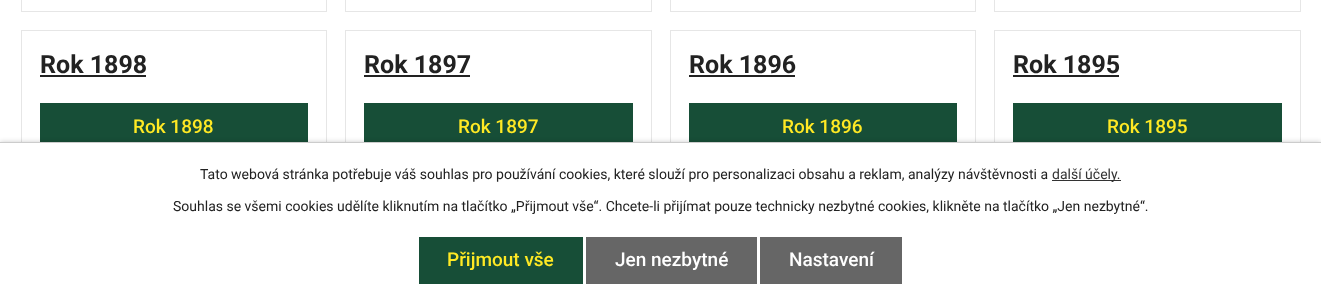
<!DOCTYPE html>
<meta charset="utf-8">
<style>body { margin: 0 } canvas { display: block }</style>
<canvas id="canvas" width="1321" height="303"></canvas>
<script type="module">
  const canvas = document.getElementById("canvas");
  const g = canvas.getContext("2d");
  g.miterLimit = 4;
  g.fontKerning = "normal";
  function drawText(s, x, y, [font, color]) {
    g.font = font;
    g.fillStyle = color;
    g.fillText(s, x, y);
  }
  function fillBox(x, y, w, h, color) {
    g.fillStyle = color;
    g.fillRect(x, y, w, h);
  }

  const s1 = ["bold 25px Roboto", "#222222"];
  const s2 = ["500 19px Roboto", "#FFE924"];
  const s3 = ["14px Roboto", "#222222"];
  const s4 = ["14px Roboto", "#333333"];
  const s5 = ["500 19px Roboto", "#FFFFFF"];

  fillBox(0, 0, 1321, 303, "#FFFFFF");
  g.strokeStyle = "#E6E6E6";
  g.strokeRect(21.5, -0.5, 305, 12);
  g.strokeRect(345.5, -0.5, 306, 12);
  g.strokeRect(670.5, -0.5, 305, 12);
  g.strokeRect(994.5, -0.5, 306, 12);
  g.strokeRect(21.5, 30.5, 305, 176);
  drawText("Rok 1898", 40, 73, s1);
  fillBox(40, 75, 106, 2, "#222222");
  fillBox(40, 103, 268, 39, "#174E37");
  drawText("Rok 1898", 133, 133, s2);
  g.strokeRect(345.5, 30.5, 306, 176);
  drawText("Rok 1897", 364, 73, s1);
  fillBox(364, 75, 106, 2, "#222222");
  fillBox(364, 103, 269, 39, "#174E37");
  drawText("Rok 1897", 458, 133, s2);
  g.strokeRect(670.5, 30.5, 305, 176);
  drawText("Rok 1896", 689, 73, s1);
  fillBox(689, 75, 106, 2, "#222222");
  fillBox(689, 103, 268, 39, "#174E37");
  drawText("Rok 1896", 782, 133, s2);
  g.strokeRect(994.5, 30.5, 306, 176);
  drawText("Rok 1895", 1013, 73, s1);
  fillBox(1013, 75, 106, 2, "#222222");
  fillBox(1013, 103, 269, 39, "#174E37");
  drawText("Rok 1895", 1107, 133, s2);
  g.fillStyle = "rgba(0, 0, 0, 0.2)";
  g.filter = "blur(2.5px)";
  g.beginPath();
  g.rect(0, 142, 1321, 161);
  g.fill();
  g.filter = "none";
  fillBox(0, 143, 1321, 160, "#FFFFFF");
  fillBox(0, 142, 1321, 1, "#CCCCCC");
  drawText("Tato webová stránka potřebuje váš souhlas pro používání cookies, které slouží pro personalizaci obsahu a reklam, analýzy návštěvnosti a", 200, 179, s3);
  fillBox(1052, 180, 69, 1, "#333333");
  drawText("další účely.", 1052, 179, s4);
  drawText("Souhlas se všemi cookies udělíte kliknutím na tlačítko „Přijmout vše“. Chcete-li přijímat pouze technicky nezbytné cookies, klikněte na tlačítko „Jen nezbytné“.", 173, 211, s3);
  fillBox(419, 237, 164, 47, "#174E37");
  drawText("Přijmout vše", 447, 266, s2);
  fillBox(586, 237, 171, 47, "#666666");
  drawText("Jen nezbytné", 615, 266, s5);
  fillBox(760, 237, 142, 47, "#666666");
  drawText("Nastavení", 789, 266, s5);
</script>
